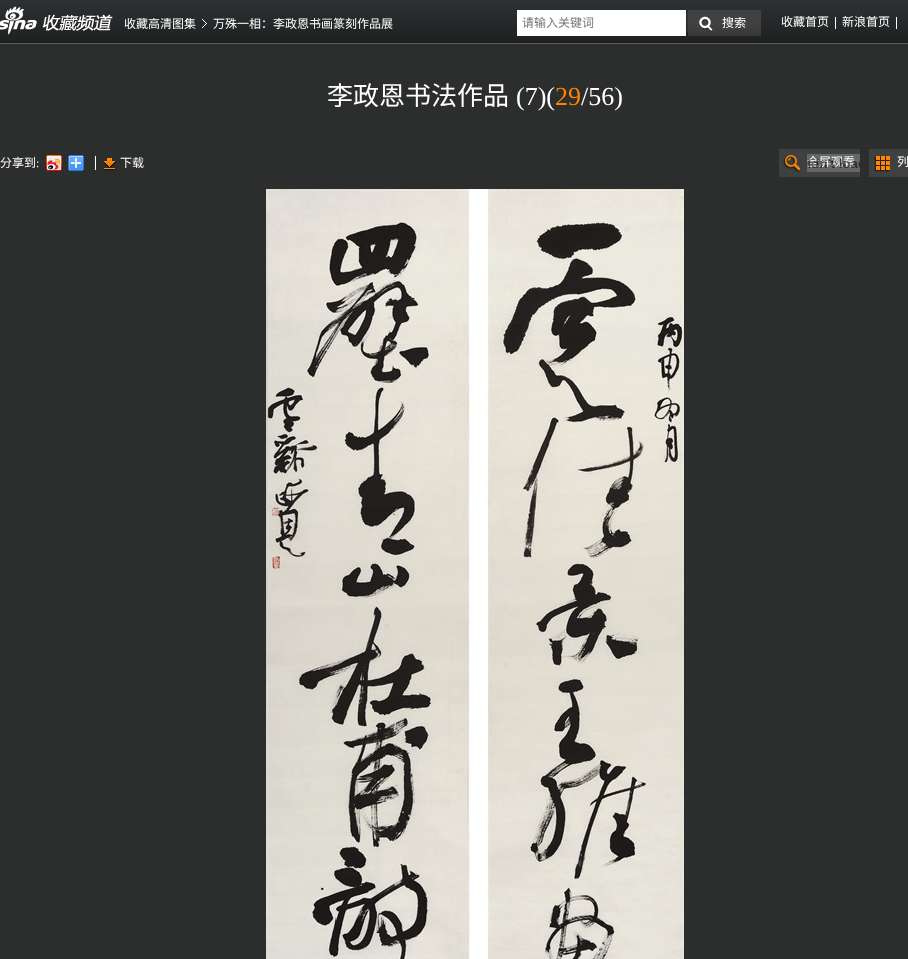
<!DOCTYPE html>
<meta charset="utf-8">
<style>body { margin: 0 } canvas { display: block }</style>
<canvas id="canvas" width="908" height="959"></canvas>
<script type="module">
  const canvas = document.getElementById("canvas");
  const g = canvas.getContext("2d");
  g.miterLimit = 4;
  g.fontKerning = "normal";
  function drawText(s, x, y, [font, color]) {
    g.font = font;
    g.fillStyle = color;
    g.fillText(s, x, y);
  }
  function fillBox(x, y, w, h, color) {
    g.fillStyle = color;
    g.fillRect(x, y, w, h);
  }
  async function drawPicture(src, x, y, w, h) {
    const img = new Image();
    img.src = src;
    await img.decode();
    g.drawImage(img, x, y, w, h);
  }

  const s1 = ["12px Noto Sans CJK SC", "#FFFFFF"];
  const s2 = ["12px Noto Sans CJK SC", "#757575"];
  const s3 = ["26px Noto Sans CJK SC", "#FFFFFF"];
  const s4 = ["26px Liberation Serif", "#FFFFFF"];
  const s5 = ["26px Liberation Serif", "#FF8400"];
  const s6 = ["12px Liberation Serif", "#FFFFFF"];

  fillBox(0, 0, 908, 959, "#2C2D2D");
  await drawPicture("pic1.png", 0, 0, 908, 44);
  await drawPicture("pic2.png", 0, 6, 37, 29);
  await drawPicture("pic3.png", 42, 14, 71, 17);
  drawText("收藏高清图集", 124, 28, s1);
  await drawPicture("pic4.png", 202, 19, 5, 9);
  drawText("万殊一相：李政恩书画篆刻作品展", 213, 28, s1);
  fillBox(517, 10, 169, 26, "#FFFFFF");
  drawText("请输入关键词", 522, 27, s2);
  await drawPicture("pic5.png", 687, 10, 74, 26);
  drawText("搜索", 722, 27, s1);
  drawText("收藏首页", 781, 26, s1);
  fillBox(835, 17, 1, 12, "#FFFFFF");
  drawText("新浪首页", 842, 26, s1);
  fillBox(896, 17, 1, 12, "#FFFFFF");
  drawText("李政恩书法作品", 327, 105, s3);
  drawText("(7)(", 516, 105, s4);
  drawText("29", 555, 105, s5);
  drawText("/56)", 581, 105, s4);
  drawText("分享到", 0, 167, s1);
  drawText(":", 36, 167, s6);
  await drawPicture("pic6.png", 46, 155, 16, 16);
  await drawPicture("pic7.png", 68, 155, 16, 16);
  await drawPicture("pic8.png", 94, 155, 2, 15);
  await drawPicture("pic9.png", 103, 158, 13, 13);
  drawText("下载", 120, 167, s1);
  fillBox(779, 149, 81, 28, "#3F4040");
  await drawPicture("pic10.png", 783, 155, 17, 17);
  drawText("全屏观看", 807, 166, s1);
  await drawPicture("pic11.png", 807, 154, 53, 18);
  fillBox(869, 149, 39, 28, "#3F4040");
  await drawPicture("pic12.png", 874, 156, 16, 16);
  drawText("列", 897, 166, s1);
  await drawPicture("pic13.png", 266, 189, 418, 770);
</script>
